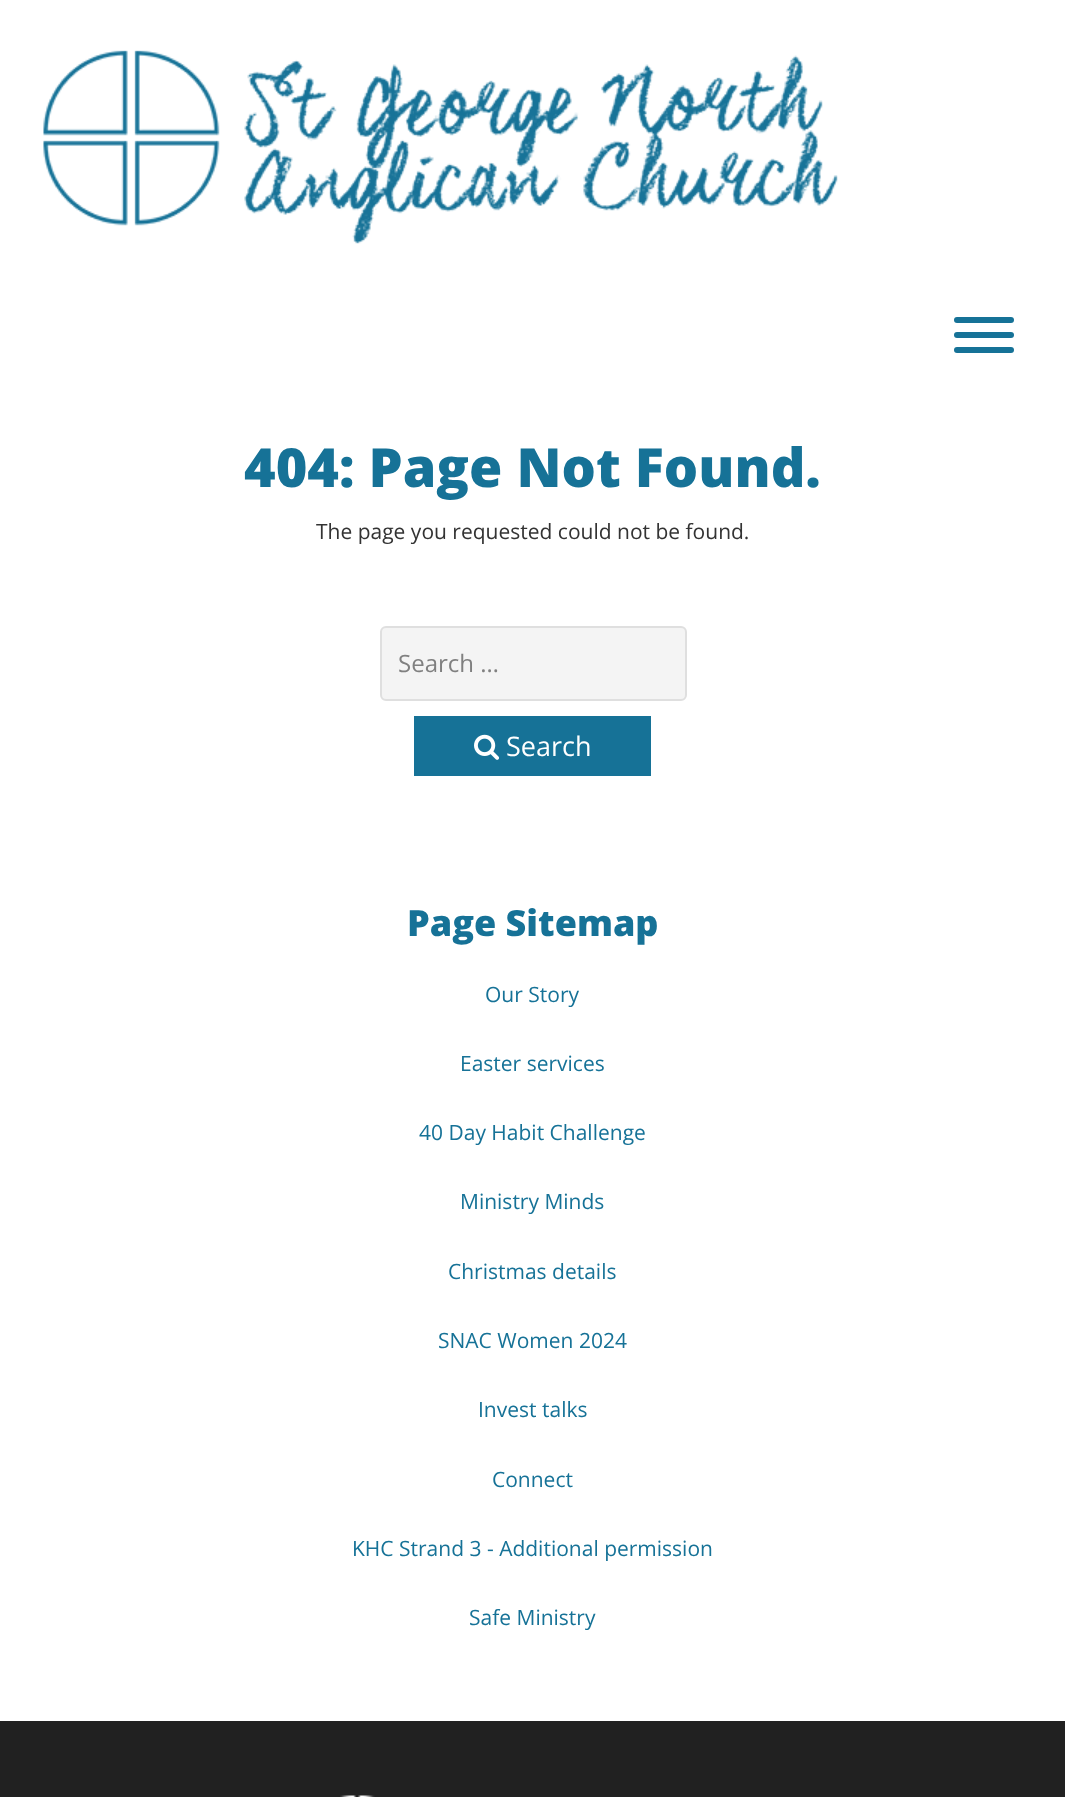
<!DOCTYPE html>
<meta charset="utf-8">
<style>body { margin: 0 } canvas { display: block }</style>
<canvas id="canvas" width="1065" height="1797"></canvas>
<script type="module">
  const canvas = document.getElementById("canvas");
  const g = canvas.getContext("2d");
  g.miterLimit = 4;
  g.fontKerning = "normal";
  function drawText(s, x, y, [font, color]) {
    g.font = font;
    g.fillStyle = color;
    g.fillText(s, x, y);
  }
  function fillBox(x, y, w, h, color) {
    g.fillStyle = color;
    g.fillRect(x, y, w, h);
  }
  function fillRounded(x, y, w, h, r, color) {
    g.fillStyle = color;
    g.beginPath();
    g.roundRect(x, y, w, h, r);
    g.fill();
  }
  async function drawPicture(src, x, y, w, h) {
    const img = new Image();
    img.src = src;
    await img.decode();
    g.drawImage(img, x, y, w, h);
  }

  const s1 = ["800 54px Open Sans", "#167297"];
  const s2 = ["21px Open Sans", "#333333"];
  const s3 = ["24px Open Sans", "#808080"];
  const s4 = ["27px Open Sans", "#FFFFFF"];
  const s5 = ["800 36px Open Sans", "#167297"];
  const s6 = ["21px Open Sans", "#167297"];

  fillBox(0, 0, 1065, 1797, "#FFFFFF");
  await drawPicture("pic1.png", 43, 50, 795, 194);
  fillRounded(954, 347, 60, 6, 3, "#167297");
  fillRounded(954, 317, 60, 6, 3, "#167297");
  fillRounded(954, 332, 60, 6, 3, "#167297");
  drawText("404: Page Not Found.", 244, 487, s1);
  drawText("The page you requested could not be found.", 316, 539, s2);
  g.fillStyle = "#F4F4F4";
  g.beginPath();
  g.roundRect(381, 627, 305, 73, 5);
  g.fill();
  g.strokeStyle = "#DFDFDF";
  g.lineWidth = 2;
  g.stroke();
  drawText("Search …", 398, 672, s3);
  fillBox(414, 716, 237, 60, "#167297");
  await drawPicture("pic2.png", 474, 734, 25, 26);
  drawText("Search", 506, 756, s4);
  drawText("Page Sitemap", 407, 936, s5);
  drawText("Our Story", 485, 1002, s6);
  drawText("Easter services", 460, 1071, s6);
  drawText("40 Day Habit Challenge", 419, 1140, s6);
  drawText("Ministry Minds", 460, 1209, s6);
  drawText("Christmas details", 448, 1279, s6);
  drawText("SNAC Women 2024", 438, 1348, s6);
  drawText("Invest talks", 478, 1417, s6);
  drawText("Connect", 492, 1487, s6);
  drawText("KHC Strand 3 - Additional permission", 352, 1556, s6);
  drawText("Safe Ministry", 469, 1625, s6);
  fillBox(0, 1721, 1065, 76, "#212121");
  await drawPicture("pic3.png", 340, 1795, 35, 2);
</script>
